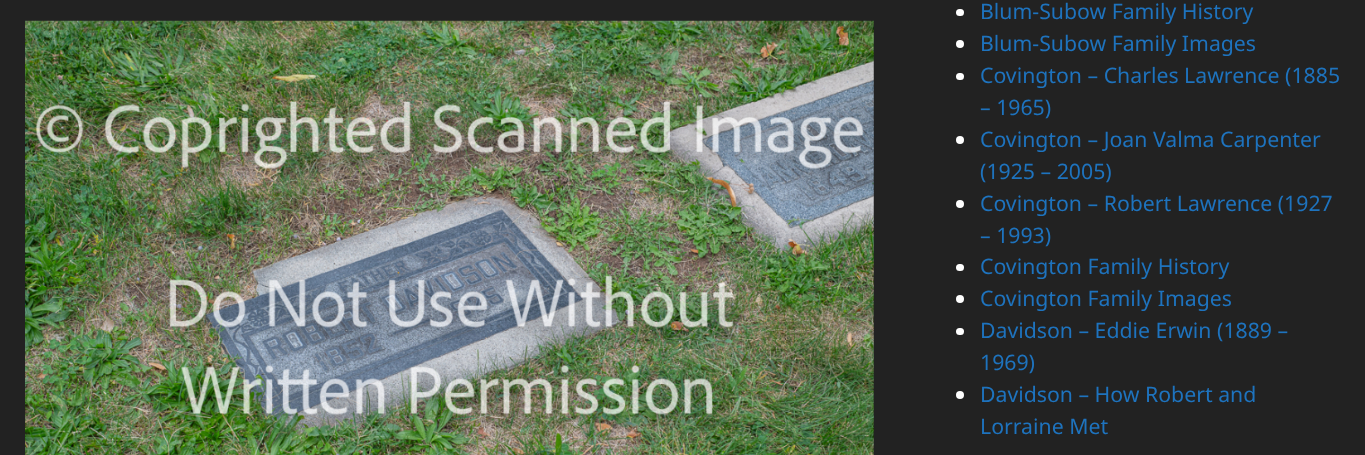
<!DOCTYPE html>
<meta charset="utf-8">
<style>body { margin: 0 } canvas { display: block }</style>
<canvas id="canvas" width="1365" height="455"></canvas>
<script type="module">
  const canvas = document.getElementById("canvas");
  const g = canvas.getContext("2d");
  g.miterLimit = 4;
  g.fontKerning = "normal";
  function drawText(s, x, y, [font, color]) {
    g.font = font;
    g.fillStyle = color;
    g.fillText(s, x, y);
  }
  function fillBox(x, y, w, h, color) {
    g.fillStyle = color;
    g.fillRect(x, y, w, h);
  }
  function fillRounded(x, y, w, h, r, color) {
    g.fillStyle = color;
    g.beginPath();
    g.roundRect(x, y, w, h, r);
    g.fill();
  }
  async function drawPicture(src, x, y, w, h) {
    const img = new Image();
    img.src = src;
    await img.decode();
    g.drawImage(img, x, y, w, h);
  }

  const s1 = ["21.25px Noto Sans", "#1E73BE"];

  fillBox(0, 0, 1365, 455, "#222222");
  await drawPicture("pic1.png", 25, 20, 849, 435);
  fillRounded(956, 9, 8, 7, 3.5, "#FFFFFF");
  drawText("Blum-Subow Family History", 980, 19, s1);
  g.fillStyle = "#FFFFFF";
  g.beginPath();
  g.arc(960, 44, 4, 0, Math.PI * 2);
  g.fill();
  drawText("Blum-Subow Family Images", 980, 51, s1);
  fillRounded(956, 73, 8, 7, 3.5, "#FFFFFF");
  drawText("Covington – Charles Lawrence (1885", 980, 83, s1);
  drawText("– 1965)", 980, 115, s1);
  g.fillStyle = "#FFFFFF";
  g.beginPath();
  g.arc(960, 140, 4, 0, Math.PI * 2);
  g.fill();
  drawText("Covington – Joan Valma Carpenter", 980, 147, s1);
  drawText("(1925 – 2005)", 980, 179, s1);
  g.fillStyle = "#FFFFFF";
  g.beginPath();
  g.arc(960, 204, 4, 0, Math.PI * 2);
  g.fill();
  drawText("Covington – Robert Lawrence (1927", 980, 211, s1);
  drawText("– 1993)", 980, 243, s1);
  fillRounded(956, 264, 8, 7, 3.5, "#FFFFFF");
  drawText("Covington Family History", 980, 274, s1);
  g.fillStyle = "#FFFFFF";
  g.beginPath();
  g.arc(960, 299, 4, 0, Math.PI * 2);
  g.fill();
  drawText("Covington Family Images", 980, 306, s1);
  fillRounded(956, 328, 8, 7, 3.5, "#FFFFFF");
  drawText("Davidson – Eddie Erwin (1889 –", 980, 338, s1);
  drawText("1969)", 980, 370, s1);
  g.fillStyle = "#FFFFFF";
  g.beginPath();
  g.arc(960, 395, 4, 0, Math.PI * 2);
  g.fill();
  drawText("Davidson – How Robert and", 980, 402, s1);
  drawText("Lorraine Met", 980, 434, s1);
</script>
